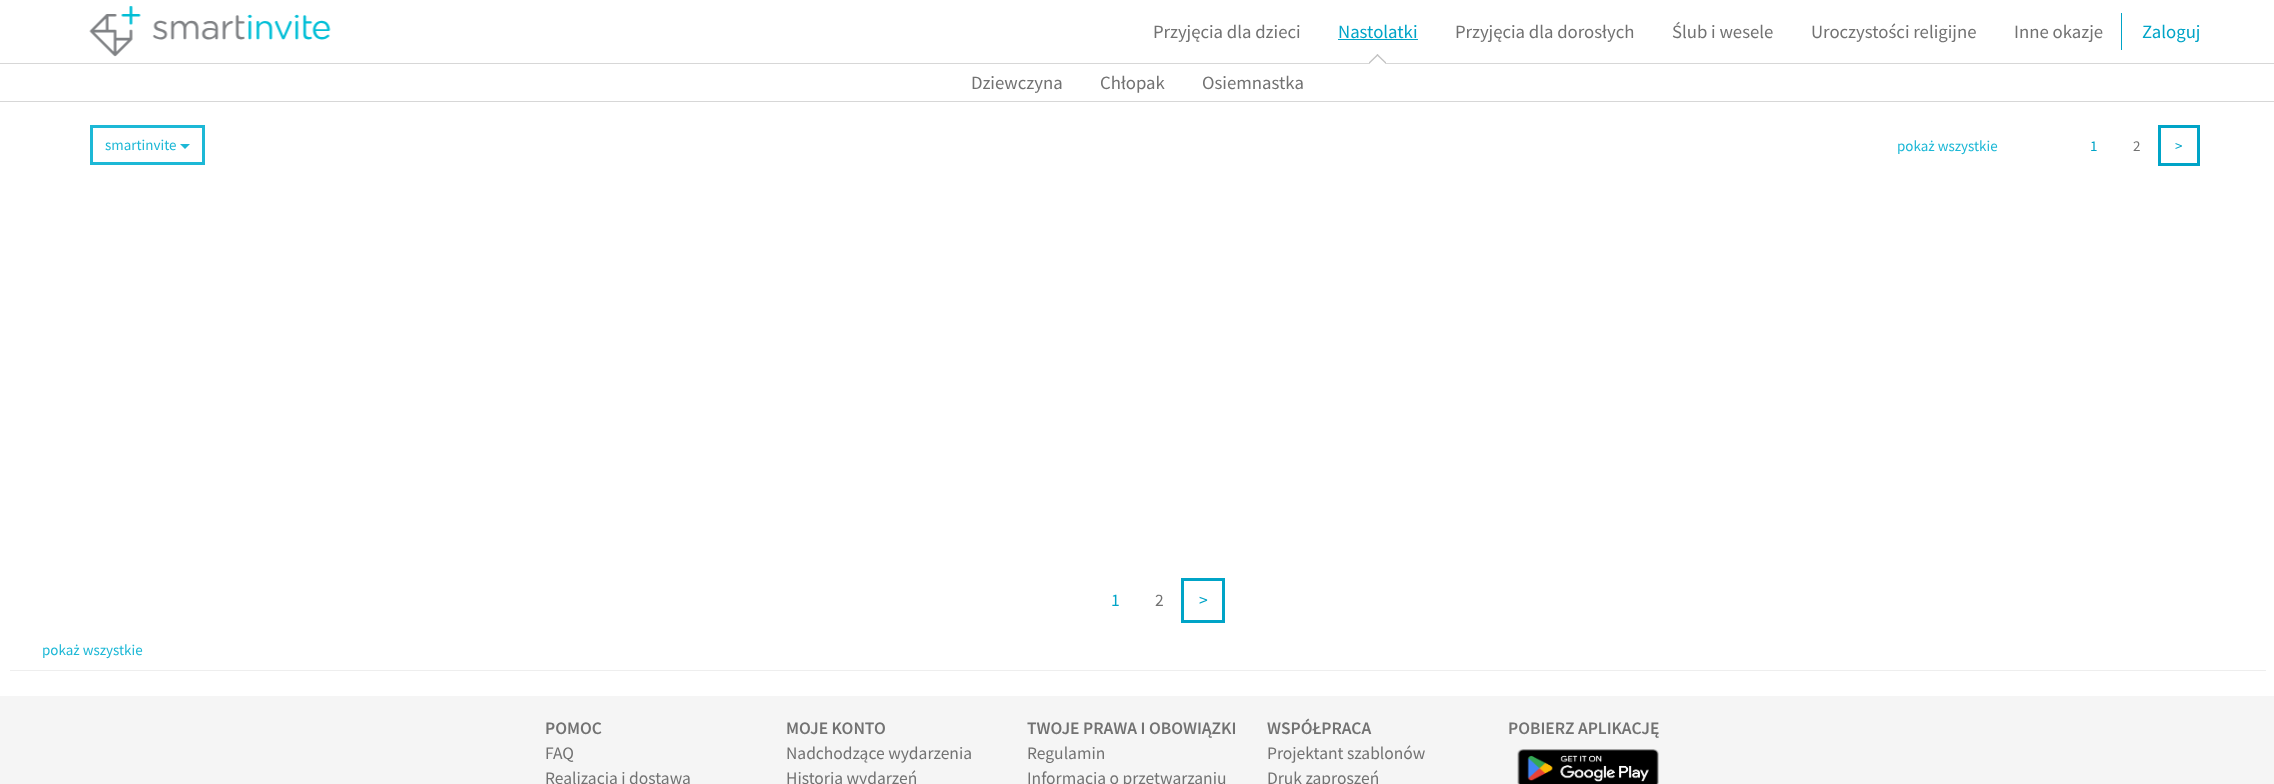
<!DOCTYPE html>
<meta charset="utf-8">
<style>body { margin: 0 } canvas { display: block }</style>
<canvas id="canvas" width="2274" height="784"></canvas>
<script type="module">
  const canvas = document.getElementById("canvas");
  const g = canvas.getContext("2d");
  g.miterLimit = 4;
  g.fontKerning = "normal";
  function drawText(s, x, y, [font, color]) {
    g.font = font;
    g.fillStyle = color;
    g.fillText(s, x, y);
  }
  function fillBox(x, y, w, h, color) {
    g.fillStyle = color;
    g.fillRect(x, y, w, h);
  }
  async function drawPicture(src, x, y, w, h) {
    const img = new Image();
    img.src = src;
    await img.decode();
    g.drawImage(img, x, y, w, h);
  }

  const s1 = ["18.75px Source Sans Pro", "#00A4C7"];
  const s2 = ["18.75px Source Sans Pro", "#727272"];
  const s3 = ["15px Source Sans Pro", "#1DB8D6"];
  const s4 = ["15px Source Sans Pro", "#00A4C7"];
  const s5 = ["15px Source Sans Pro", "#727272"];
  const s6 = ["17.5px Source Sans Pro", "#00A4C7"];
  const s7 = ["17.5px Source Sans Pro", "#727272"];
  const s8 = ["600 17.5px Source Sans Pro", "#727272"];

  fillBox(0, 0, 2274, 784, "#FFFFFF");
  fillBox(0, 63, 2274, 1, "#D7D7D7");
  await drawPicture("pic1.png", 89, 6, 242, 51);
  drawText("Nastolatki", 1338, 38, s1);
  fillBox(1338, 39, 80, 1, "#00A4C7");
  fillBox(1369, 63, 17, 1, "#FFFFFF");
  g.save();
  g.beginPath();
  g.rect(1369, 46, 17, 18);
  g.clip();
  g.fillStyle = "#C2C2C2";
  g.beginPath();
  g.moveTo(1377.5, 54);
  g.lineTo(1390, 66);
  g.lineTo(1389, 67);
  g.lineTo(1376.5, 55);
  g.closePath();
  g.fill();
  g.beginPath();
  g.moveTo(1377.5, 54);
  g.lineTo(1378.5, 55);
  g.lineTo(1366, 67);
  g.lineTo(1365, 66);
  g.closePath();
  g.fill();
  g.restore();
  fillBox(0, 101, 2274, 1, "#D7D7D7");
  drawText("Dziewczyna", 971, 89, s2);
  drawText("Chłopak", 1100, 89, s2);
  drawText("Osiemnastka", 1202, 89, s2);
  drawText("Ślub i wesele", 1672, 38, s2);
  drawText("Uroczystości religijne", 1811, 38, s2);
  fillBox(2121, 13, 1, 37, "#00A4C7");
  drawText("Przyjęcia dla dzieci", 1153, 38, s2);
  drawText("Przyjęcia dla dorosłych", 1455, 38, s2);
  drawText("Inne okazje", 2014, 38, s2);
  drawText("Zaloguj", 2142, 38, s1);
  g.strokeStyle = "#1DB8D6";
  g.lineWidth = 3;
  g.strokeRect(91.5, 126.5, 112, 37);
  drawText("smartinvite", 105, 150, s3);
  g.beginPath();
  g.moveTo(180, 144);
  g.lineTo(190, 144);
  g.lineTo(185, 149);
  g.closePath();
  g.fill();
  drawText("pokaż wszystkie", 1897, 151, s3);
  drawText("1", 2090, 151, s4);
  drawText("2", 2133, 151, s5);
  g.strokeStyle = "#00A4C7";
  g.strokeRect(2159.5, 126.5, 39, 38);
  drawText(">", 2175, 151, s4);
  drawText("1", 1111, 606, s6);
  drawText("2", 1155, 606, s7);
  g.strokeRect(1182.5, 579.5, 41, 42);
  drawText(">", 1199, 606, s6);
  drawText("pokaż wszystkie", 42, 655, s3);
  fillBox(10, 670, 2256, 1, "#EEEEEE");
  fillBox(0, 696, 2274, 88, "#F5F5F5");
  drawText("POMOC", 545, 734, s8);
  drawText("FAQ", 545, 759, s7);
  drawText("Realizacja i dostawa", 545, 784, s7);
  drawText("MOJE KONTO", 786, 734, s8);
  drawText("Nadchodzące wydarzenia", 786, 759, s7);
  drawText("Historia wydarzeń", 786, 784, s7);
  drawText("TWOJE PRAWA I OBOWIĄZKI", 1027, 734, s8);
  drawText("Regulamin", 1027, 759, s7);
  drawText("Informacja o przetwarzaniu", 1027, 784, s7);
  drawText("WSPÓŁPRACA", 1267, 734, s8);
  drawText("Projektant szablonów", 1267, 759, s7);
  drawText("Druk zaproszeń", 1267, 784, s7);
  drawText("POBIERZ APLIKACJĘ", 1508, 734, s8);
  await drawPicture("pic2.png", 1517, 749, 142, 35);
</script>
